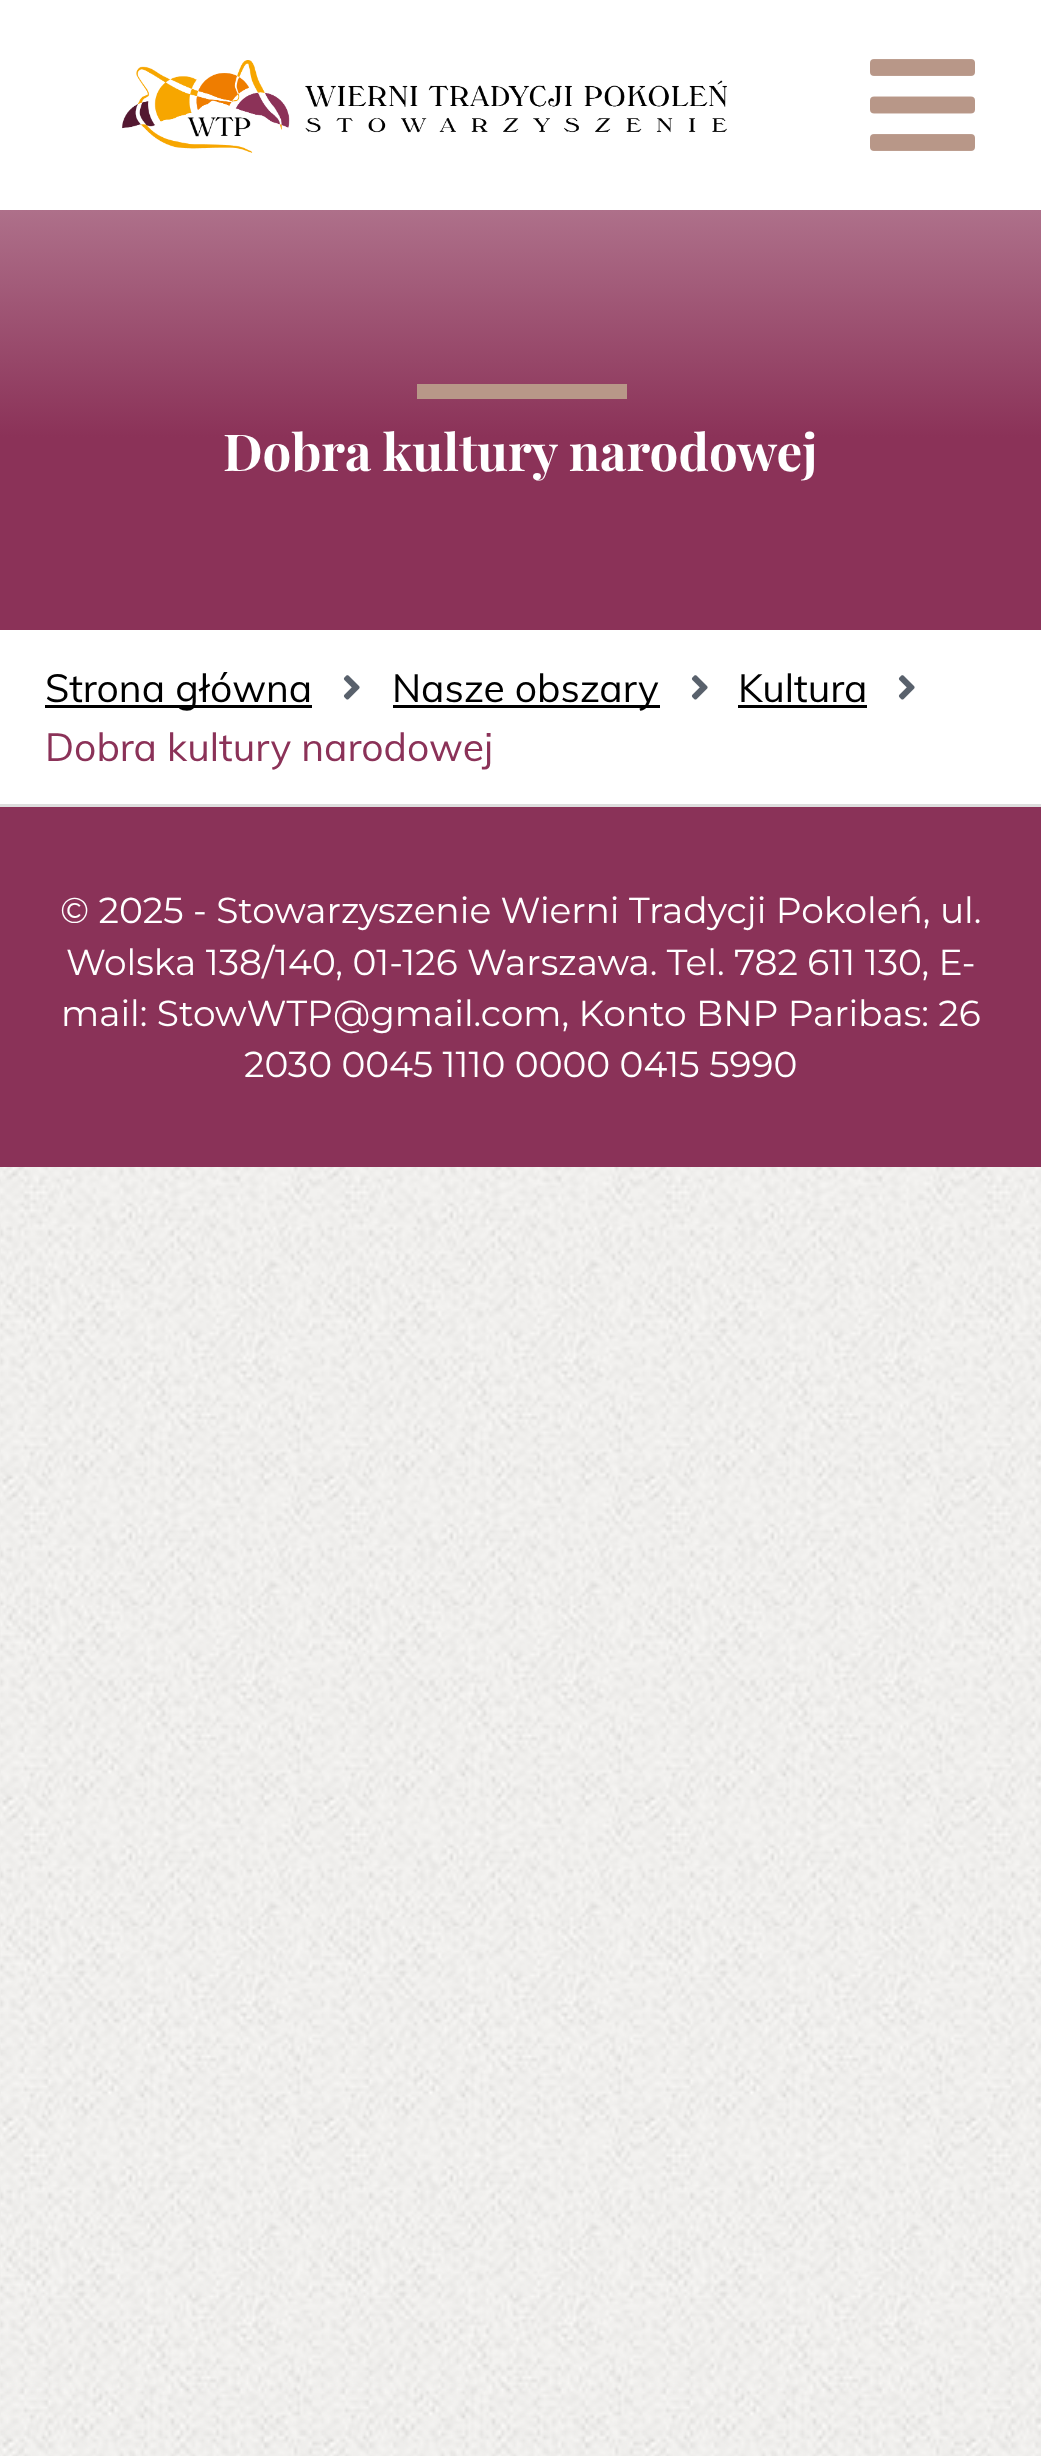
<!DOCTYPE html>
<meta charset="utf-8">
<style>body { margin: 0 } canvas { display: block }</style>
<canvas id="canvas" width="1041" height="2456"></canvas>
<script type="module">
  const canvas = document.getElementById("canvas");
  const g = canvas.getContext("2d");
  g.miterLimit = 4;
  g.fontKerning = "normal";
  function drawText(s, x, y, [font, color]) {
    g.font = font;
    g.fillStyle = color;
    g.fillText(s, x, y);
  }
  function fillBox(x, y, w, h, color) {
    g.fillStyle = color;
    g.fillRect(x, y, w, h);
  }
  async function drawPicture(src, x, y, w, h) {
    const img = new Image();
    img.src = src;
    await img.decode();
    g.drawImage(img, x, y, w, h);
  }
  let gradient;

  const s1 = ["bold 51px Playfair Display", "#FFFFFF"];
  const s2 = ["39px Muli", "#000000"];
  const s3 = ["39px Muli", "#8B3258"];
  const s4 = ["36px Montserrat", "#FFFFFF"];

  fillBox(0, 0, 1041, 2456, "#FFFFFF");
  await drawPicture("pic1.png", 0, 1167, 1041, 1289);
  await drawPicture("pic2.png", 122, 60, 605, 93);
  await drawPicture("pic3.png", 870, 59, 105, 92);
  gradient = g.createLinearGradient(521, 210, 521, 630);
  gradient.addColorStop(0, "#AE708A");
  gradient.addColorStop(0.54, "#8B3258");
  gradient.addColorStop(1, "#8B3258");
  g.fillStyle = gradient;
  g.fillRect(0, 210, 1041, 420);
  fillBox(417, 384, 210, 15, "#B89788");
  drawText("Dobra kultury narodowej", 223, 471, s1);
  fillBox(0, 804, 1041, 3, "#DDDDDD");
  fillBox(45, 705, 267, 3, "#000000");
  drawText("Strona główna", 45, 702, s2);
  await drawPicture("pic4.png", 343, 675, 17, 25);
  fillBox(393, 705, 267, 3, "#000000");
  drawText("Nasze obszary", 392, 702, s2);
  await drawPicture("pic4.png", 691, 675, 17, 25);
  drawText("Kultura", 738, 702, s2);
  fillBox(738, 705, 129, 3, "#000000");
  await drawPicture("pic4.png", 898, 675, 17, 25);
  drawText("Dobra kultury narodowej", 45, 761, s3);
  fillBox(0, 807, 1041, 360, "#8A3258");
  drawText("© 2025 - Stowarzyszenie Wierni Tradycji Pokoleń, ul.", 60, 923, s4);
  drawText("Wolska 138/140, 01-126 Warszawa. Tel. 782 611 130, E-", 66, 975, s4);
  drawText("mail: StowWTP@gmail.com, Konto BNP Paribas: 26", 61, 1026, s4);
  drawText("2030 0045 1110 0000 0415 5990", 244, 1077, s4);
</script>
